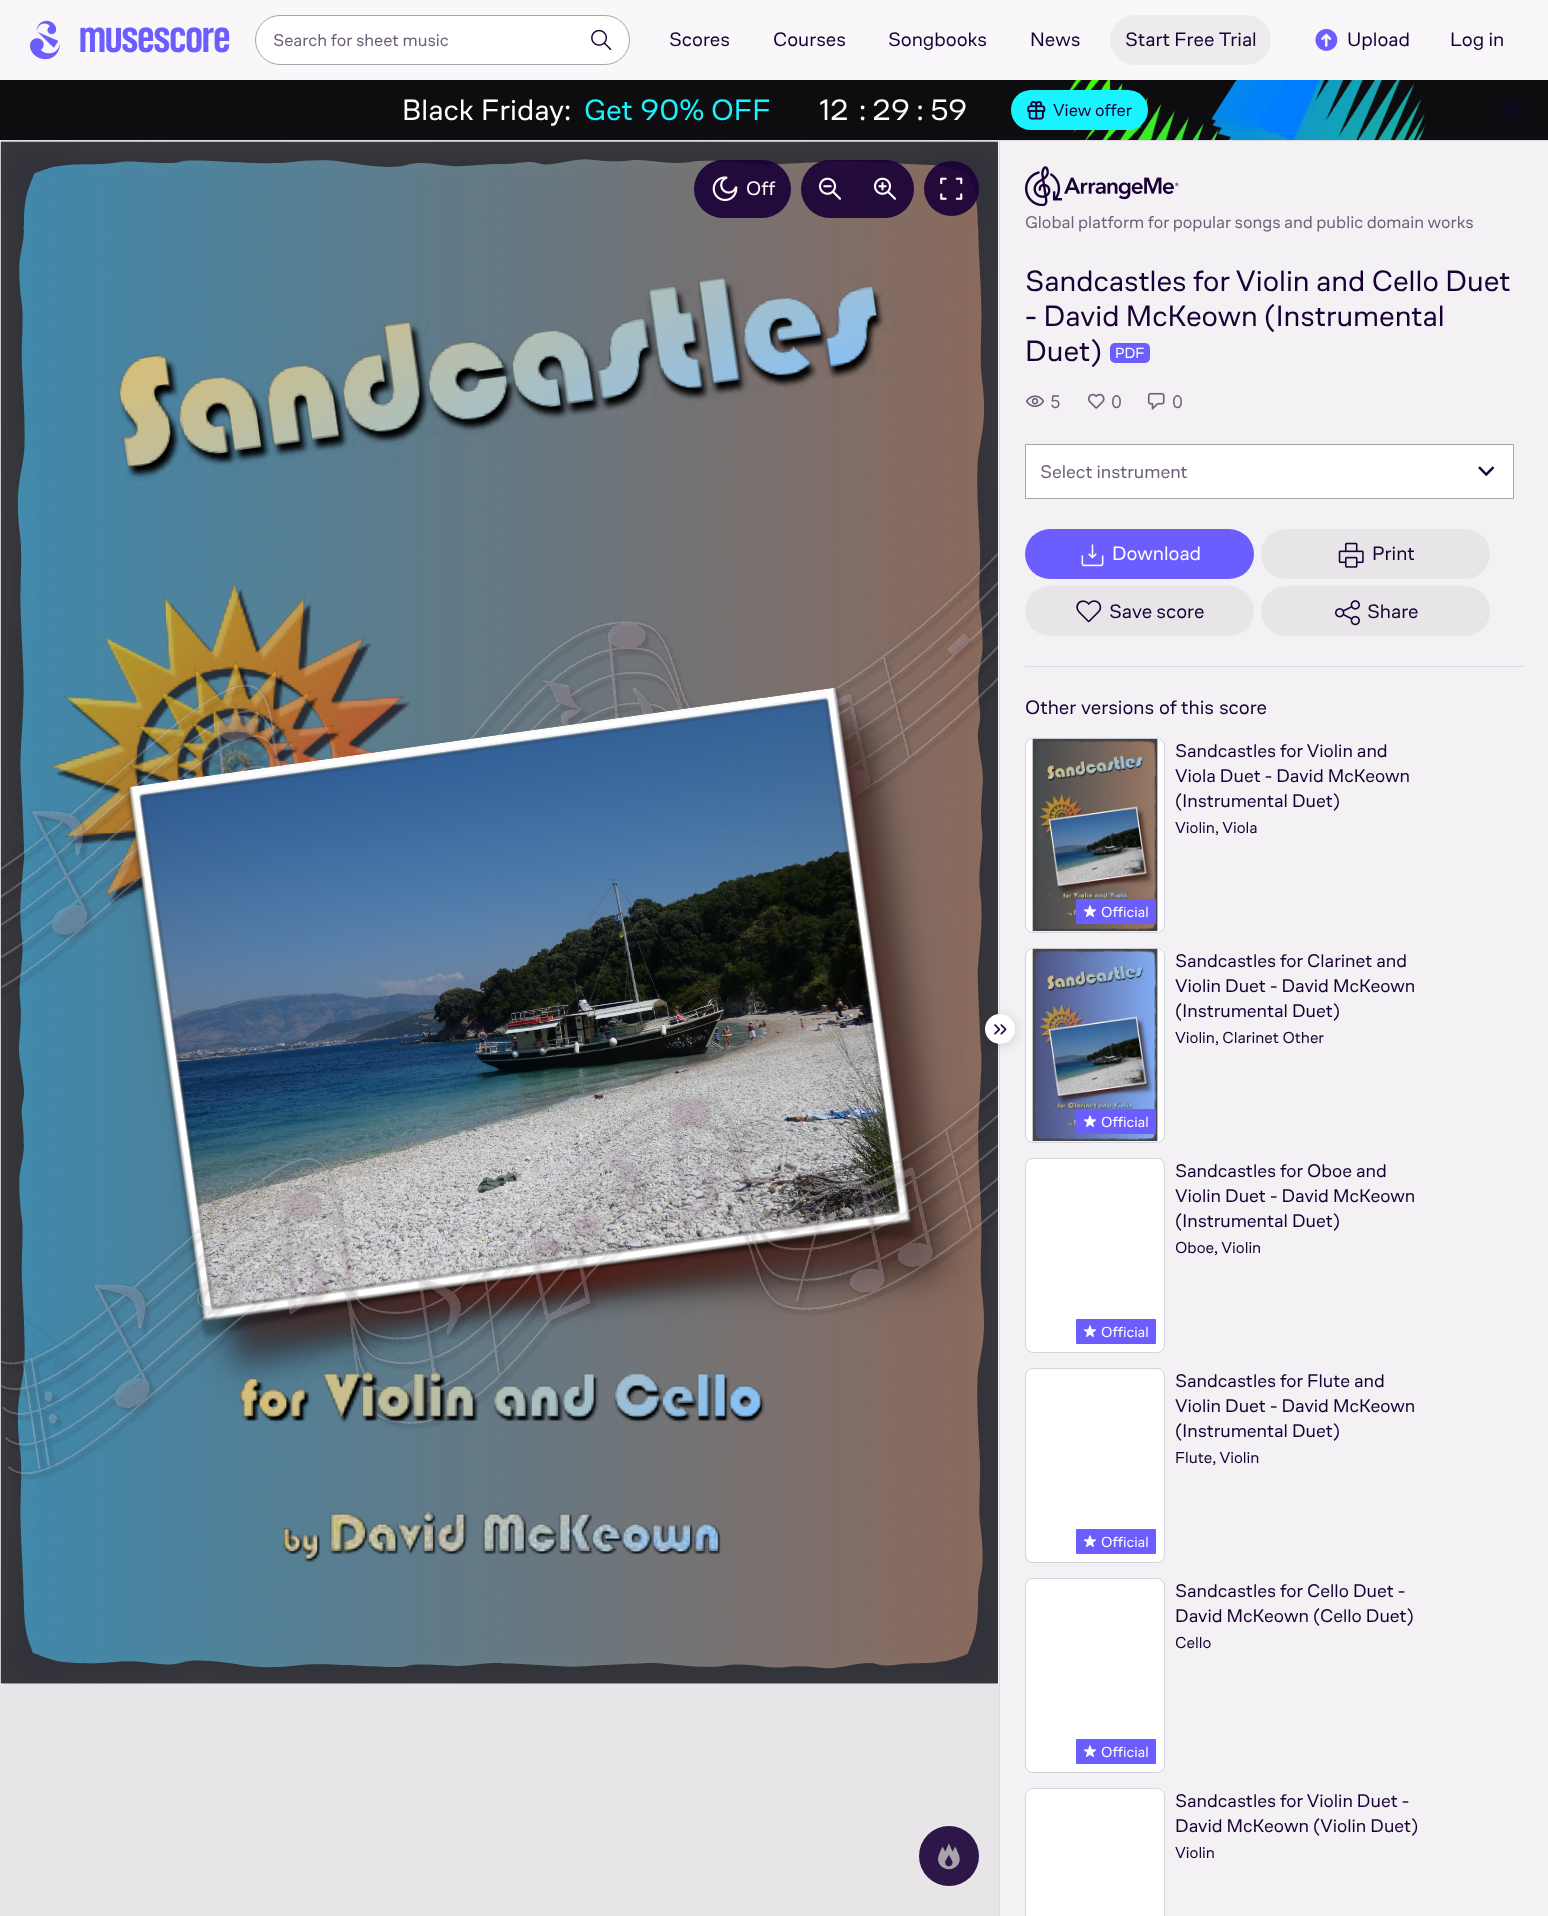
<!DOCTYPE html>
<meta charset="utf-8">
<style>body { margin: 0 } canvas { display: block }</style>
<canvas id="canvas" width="1548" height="1916"></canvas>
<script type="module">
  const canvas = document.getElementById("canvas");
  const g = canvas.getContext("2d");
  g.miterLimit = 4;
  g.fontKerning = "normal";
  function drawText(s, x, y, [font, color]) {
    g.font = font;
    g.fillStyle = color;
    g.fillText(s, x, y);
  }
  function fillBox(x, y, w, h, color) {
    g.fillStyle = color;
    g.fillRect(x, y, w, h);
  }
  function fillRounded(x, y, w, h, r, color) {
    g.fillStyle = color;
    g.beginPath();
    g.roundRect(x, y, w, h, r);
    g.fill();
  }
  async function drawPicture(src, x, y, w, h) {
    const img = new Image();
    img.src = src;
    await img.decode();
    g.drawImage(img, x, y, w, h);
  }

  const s1 = ["17.5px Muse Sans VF", "#6E5F79"];
  const s2 = ["20px Muse Sans VF", "#180036"];
  const s3 = ["30px Muse Sans VF", "#FFFFFF"];
  const s4 = ["30px Muse Sans VF", "#19F3FF"];
  const s5 = ["17.5px Muse Sans VF", "#180036"];
  const s6 = ["20px Muse Sans VF", "#FFFFFF"];
  const s7 = ["30px Muse Sans VF", "#180036"];
  const s8 = ["15px Muse Sans VF", "#FFFFFF"];
  const s9 = ["17.5px Inter", "#6E5F79"];
  const s10 = ["18.75px Muse Sans VF", "#6E5F79"];
  const s11 = ["18.75px Muse Sans VF", "#180036"];
  const s12 = ["16.25px Muse Sans VF", "#180036"];

  fillBox(0, 0, 1548, 1916, "#F9F7FA");
  fillBox(0, 140, 1548, 1, "#E2DEE6");
  await drawPicture("pic1.png", 30, 20, 200, 40);
  g.fillStyle = "#FFFFFF";
  g.beginPath();
  g.roundRect(255.5, 15.5, 374, 49, 24.5);
  g.fill();
  g.strokeStyle = "#A7A4A9";
  g.stroke();
  drawText("Search for sheet music", 273, 46, s1);
  await drawPicture("pic2.png", 591, 29, 21, 22);
  drawText("Scores", 669, 46, s2);
  drawText("Courses", 773, 46, s2);
  drawText("Songbooks", 888, 46, s2);
  drawText("News", 1030, 46, s2);
  fillRounded(1110, 15, 161, 50, 25, "#EDEBEE");
  drawText("Start Free Trial", 1125, 46, s2);
  await drawPicture("pic3.png", 1315, 29, 23, 22);
  drawText("Upload", 1347, 46, s2);
  drawText("Log in", 1450, 46, s2);
  fillBox(0, 80, 1548, 60, "#0D0D10");
  drawText("Black", 402, 120, s3);
  drawText("Friday:", 481, 120, s3);
  drawText("Get", 584, 120, s4);
  drawText("90%", 640, 120, s4);
  drawText("OFF", 711, 120, s4);
  drawText("12", 819, 120, s3);
  drawText(":", 859, 120, s3);
  drawText("29 : 59", 872, 120, s3);
  await drawPicture("pic4.png", 1069, 80, 356, 60);
  fillRounded(1011, 90, 137, 40, 20, "#19F3FF");
  await drawPicture("pic5.png", 1027, 101, 19, 19);
  drawText("View offer", 1053, 116, s5);
  g.fillStyle = "#0E0C14";
  g.beginPath();
  g.arc(1514, 110, 15, 0, Math.PI * 2);
  g.fill();
  await drawPicture("pic6.png", 1509, 105, 10, 10);
  fillBox(0, 1684, 999, 232, "#E7E5E8");
  fillBox(0, 141, 999, 1543, "#FFFFFF");
  await drawPicture("pic7.png", 0, 141, 999, 1543);
  fillRounded(694, 160, 97, 58, 29, "rgba(24, 0, 54, 0.9)");
  g.beginPath();
  g.roundRect(694.5, 160.5, 96, 57, 28.5);
  g.strokeStyle = "rgba(24, 0, 54, 0.1)";
  g.stroke();
  await drawPicture("pic8.png", 712, 176, 26, 25);
  drawText("Off", 746, 195, s6);
  fillRounded(801, 160, 113, 58, 29, "rgba(24, 0, 54, 0.9)");
  g.beginPath();
  g.roundRect(801.5, 160.5, 112, 57, 28.5);
  g.stroke();
  await drawPicture("pic9.png", 818, 177, 23, 23);
  await drawPicture("pic10.png", 873, 177, 23, 23);
  g.beginPath();
  g.arc(951.5, 188.5, 27.5, 0, Math.PI * 2);
  g.fill();
  await drawPicture("pic11.png", 940, 177, 23, 23);
  g.fillStyle = "#2D1748";
  g.beginPath();
  g.arc(949, 1856, 30, 0, Math.PI * 2);
  g.fill();
  await drawPicture("pic12.png", 938, 1843, 22, 27);
  fillBox(1000, 141, 548, 1775, "#F3F1F4");
  fillBox(999, 141, 1, 1775, "#DDD9E1");
  g.fillStyle = "#FFFFFF";
  g.beginPath();
  g.roundRect(1025.5, 948.5, 139, 194, 7.5);
  g.fill();
  g.strokeStyle = "#D2D6DC";
  g.stroke();
  await drawPicture("pic25.png", 1030, 948, 130, 194);
  g.fillStyle = "rgba(0, 0, 0, 0.14)";
  g.filter = "blur(6px)";
  g.beginPath();
  g.roundRect(985, 1016, 30, 30, 15);
  g.fill();
  g.filter = "none";
  g.fillStyle = "#FFFFFF";
  g.beginPath();
  g.arc(1000, 1029, 15, 0, Math.PI * 2);
  g.fill();
  await drawPicture("pic13.png", 994, 1024, 13, 11);
  await drawPicture("pic14.png", 1025, 166, 154, 40);
  g.wordSpacing = "-0.25px";
  drawText("Global platform for popular songs and public domain works", 1025, 228, s1);
  g.wordSpacing = "0px";
  drawText("Sandcastles for Violin and Cello Duet", 1025, 291, s7);
  drawText("- David McKeown (Instrumental", 1025, 326, s7);
  drawText("Duet)", 1025, 361, s7);
  fillRounded(1110, 343, 40, 20, 5, "#6B5DFE");
  drawText("PDF", 1115, 358, s8);
  await drawPicture("pic15.png", 1025, 395, 20, 13);
  drawText("5", 1050, 408, s9);
  await drawPicture("pic16.png", 1087, 393, 18, 16);
  drawText("0", 1111, 408, s9);
  await drawPicture("pic17.png", 1147, 392, 18, 18);
  drawText("0", 1172, 408, s9);
  g.fillStyle = "#FFFFFF";
  g.beginPath();
  g.rect(1025.5, 444.5, 488, 54);
  g.fill();
  g.strokeStyle = "#A7A4A9";
  g.stroke();
  drawText("Select instrument", 1040, 478, s10);
  await drawPicture("pic18.png", 1478, 466, 17, 11);
  fillRounded(1025, 529, 229, 50, 25, "#6B5DFE");
  await drawPicture("pic19.png", 1081, 544, 23, 23);
  drawText("Download", 1112, 560, s6);
  fillRounded(1261, 529, 229, 50, 25, "#E7E5E8");
  await drawPicture("pic20.png", 1338, 542, 26, 26);
  drawText("Print", 1372, 560, s2);
  fillRounded(1025, 586, 229, 50, 25, "#E7E5E8");
  await drawPicture("pic21.png", 1076, 600, 26, 23);
  drawText("Save score", 1109, 618, s2);
  fillRounded(1261, 586, 229, 50, 25, "#E7E5E8");
  await drawPicture("pic22.png", 1335, 600, 25, 26);
  drawText("Share", 1367, 618, s2);
  fillBox(1025, 666, 499, 1, "#DDD9E1");
  drawText("Other", 1025, 714, s2);
  drawText("versions", 1081, 714, s2);
  drawText("of this", 1159, 714, s2);
  drawText("score", 1219, 714, s2);
  drawText("Sandcastles for Violin and", 1175, 757, s11);
  drawText("Viola Duet - David McKeown", 1175, 782, s11);
  drawText("(Instrumental Duet)", 1175, 807, s11);
  drawText("Violin, Viola", 1175, 833, s12);
  g.fillStyle = "#FFFFFF";
  g.beginPath();
  g.roundRect(1025.5, 738.5, 139, 194, 7.5);
  g.fill();
  g.strokeStyle = "#D2D6DC";
  g.stroke();
  await drawPicture("pic23.png", 1030, 738, 130, 194);
  fillRounded(1076, 899, 80, 25, 1, "#6B5DFE");
  await drawPicture("pic24.png", 1084, 905, 12, 12);
  drawText("Official", 1101, 917, s8);
  drawText("Sandcastles for Clarinet and", 1175, 967, s11);
  drawText("Violin Duet - David McKeown", 1175, 992, s11);
  drawText("(Instrumental Duet)", 1175, 1017, s11);
  drawText("Violin, Clarinet Other", 1175, 1043, s12);
  fillRounded(1076, 1109, 80, 25, 1, "#6B5DFE");
  await drawPicture("pic24.png", 1084, 1115, 12, 12);
  drawText("Official", 1101, 1127, s8);
  drawText("Sandcastles for Oboe and", 1175, 1177, s11);
  drawText("Violin Duet - David McKeown", 1175, 1202, s11);
  drawText("(Instrumental Duet)", 1175, 1227, s11);
  drawText("Oboe, Violin", 1175, 1253, s12);
  g.fillStyle = "#FFFFFF";
  g.beginPath();
  g.roundRect(1025.5, 1158.5, 139, 194, 7.5);
  g.fill();
  g.stroke();
  fillRounded(1076, 1319, 80, 25, 1, "#6B5DFE");
  await drawPicture("pic24.png", 1084, 1325, 12, 12);
  drawText("Official", 1101, 1337, s8);
  drawText("Sandcastles for Flute and", 1175, 1387, s11);
  drawText("Violin Duet - David McKeown", 1175, 1412, s11);
  drawText("(Instrumental Duet)", 1175, 1437, s11);
  drawText("Flute, Violin", 1175, 1463, s12);
  g.fillStyle = "#FFFFFF";
  g.beginPath();
  g.roundRect(1025.5, 1368.5, 139, 194, 7.5);
  g.fill();
  g.stroke();
  fillRounded(1076, 1529, 80, 25, 1, "#6B5DFE");
  await drawPicture("pic24.png", 1084, 1535, 12, 12);
  drawText("Official", 1101, 1547, s8);
  drawText("Sandcastles for Cello Duet -", 1175, 1597, s11);
  drawText("David McKeown (Cello Duet)", 1175, 1622, s11);
  drawText("Cello", 1175, 1648, s12);
  g.fillStyle = "#FFFFFF";
  g.beginPath();
  g.roundRect(1025.5, 1578.5, 139, 194, 7.5);
  g.fill();
  g.stroke();
  fillRounded(1076, 1739, 80, 25, 1, "#6B5DFE");
  await drawPicture("pic24.png", 1084, 1745, 12, 12);
  drawText("Official", 1101, 1757, s8);
  g.beginPath();
  g.roundRect(1025, 1788, 140, 128, [8, 8, 0, 0]);
  g.fill();
  g.beginPath();
  g.roundRect(1025.5, 1788.5, 139, 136, 7.5);
  g.stroke();
  drawText("Sandcastles for Violin Duet -", 1175, 1807, s11);
  drawText("David McKeown (Violin Duet)", 1175, 1832, s11);
  drawText("Violin", 1175, 1858, s12);
</script>
